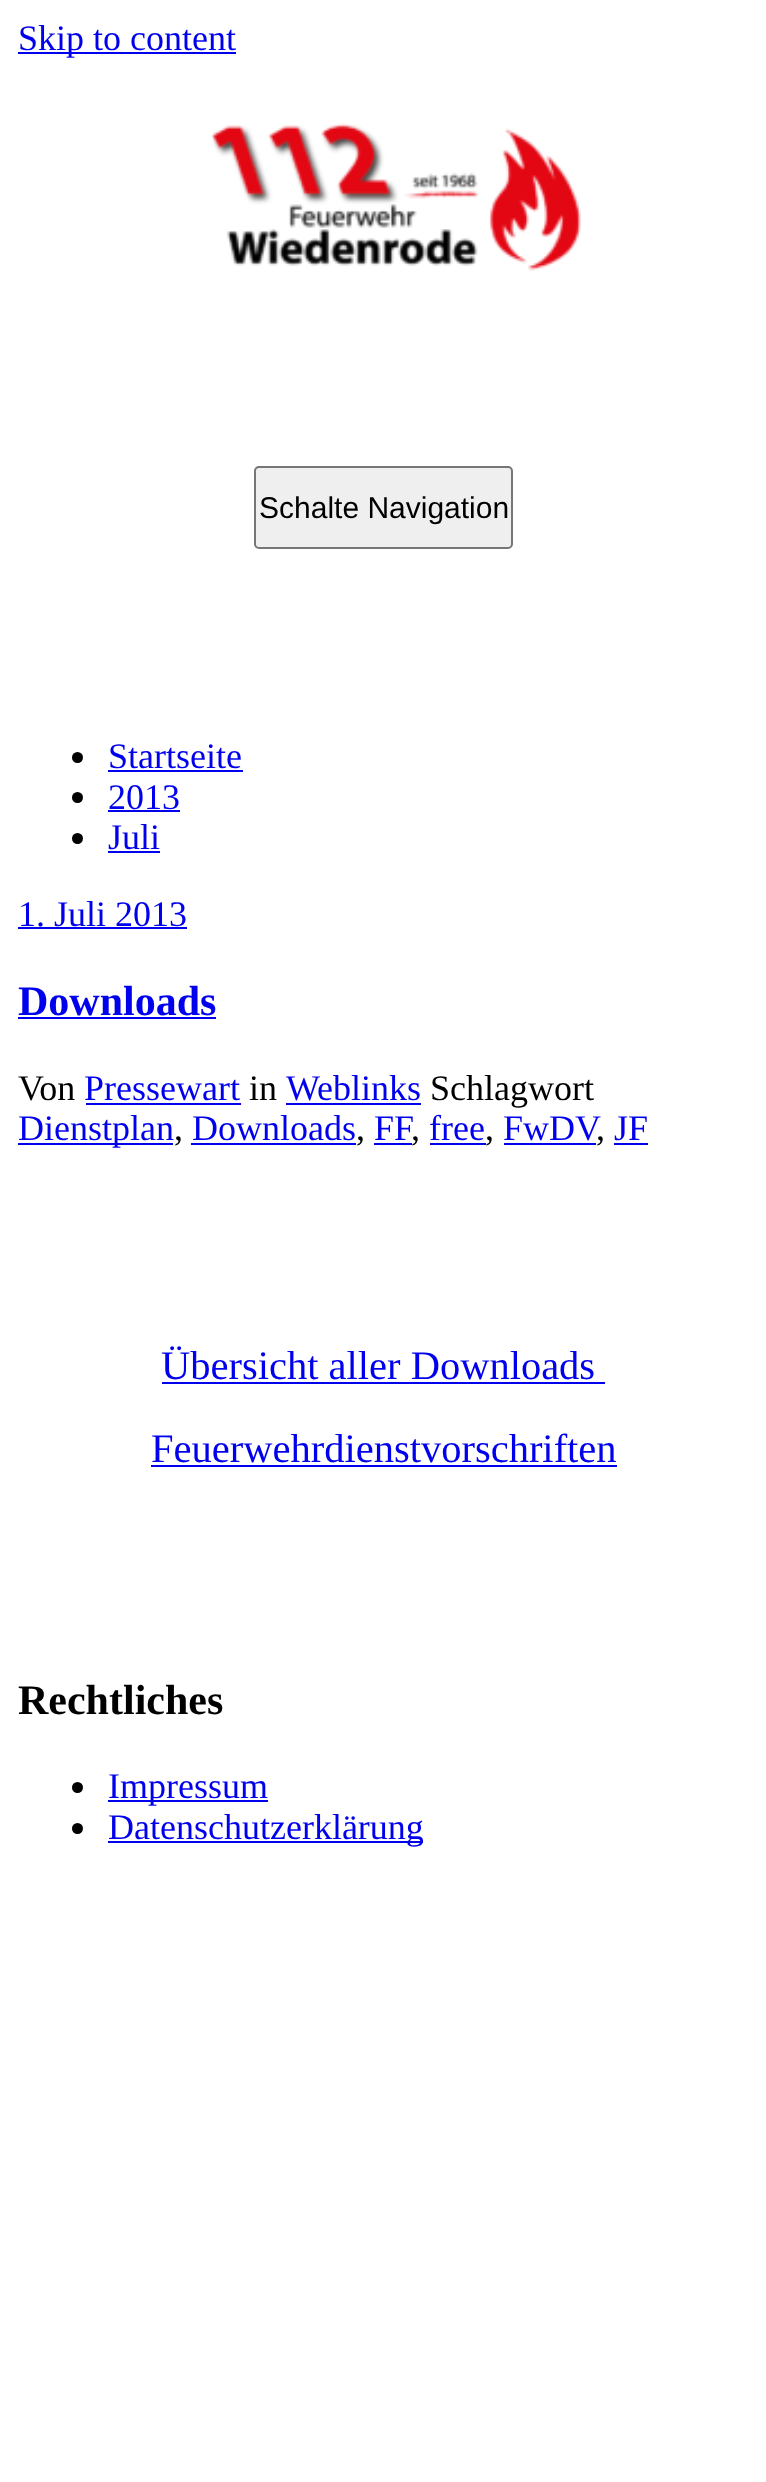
<!DOCTYPE html>
<meta charset="utf-8">
<style>body { margin: 0 } canvas { display: block }</style>
<canvas id="canvas" width="766" height="2482"></canvas>
<script type="module">
  const canvas = document.getElementById("canvas");
  const g = canvas.getContext("2d");
  g.miterLimit = 4;
  g.fontKerning = "normal";
  function drawText(s, x, y, [font, color]) {
    g.font = font;
    g.fillStyle = color;
    g.fillText(s, x, y);
  }
  function fillBox(x, y, w, h, color) {
    g.fillStyle = color;
    g.fillRect(x, y, w, h);
  }
  async function drawPicture(src, x, y, w, h) {
    const img = new Image();
    img.src = src;
    await img.decode();
    g.drawImage(img, x, y, w, h);
  }

  const s1 = ["36px Liberation Serif", "#0000EE"];
  const s2 = ["30px Liberation Sans", "#000000"];
  const s3 = ["bold 42px Liberation Serif", "#0000EE"];
  const s4 = ["36px Liberation Serif", "#000000"];
  const s5 = ["40.5px Liberation Serif", "#0000EE"];
  const s6 = ["bold 42px Liberation Serif", "#000000"];

  fillBox(0, 0, 766, 2482, "#FFFFFF");
  fillBox(18, 52, 218, 2, "#0000EE");
  drawText("Skip to content", 18, 50, s1);
  await drawPicture("pic1.png", 211, 123, 370, 148);
  g.fillStyle = "#EFEFEF";
  g.beginPath();
  g.roundRect(255, 467, 257, 81, 4);
  g.fill();
  g.strokeStyle = "#767676";
  g.lineWidth = 2;
  g.stroke();
  drawText("Schalte Navigation", 259, 518, s2);
  g.beginPath();
  g.arc(77.5, 757.5, 5.5, 0, Math.PI * 2);
  g.fill();
  drawText("Startseite", 108, 768, s1);
  fillBox(108, 770, 135, 2, "#0000EE");
  g.fillStyle = "#000000";
  g.beginPath();
  g.arc(77.5, 797.5, 5.5, 0, Math.PI * 2);
  g.fill();
  drawText("2013", 108, 809, s1);
  fillBox(108, 810, 72, 2, "#0000EE");
  g.fillStyle = "#000000";
  g.beginPath();
  g.arc(77.5, 838.5, 5.5, 0, Math.PI * 2);
  g.fill();
  drawText("Juli", 108, 849, s1);
  fillBox(108, 851, 52, 2, "#0000EE");
  drawText("1. Juli 2013", 18, 926, s1);
  fillBox(18, 927, 169, 2, "#0000EE");
  drawText("Downloads", 18, 1015, s3);
  fillBox(18, 1017, 198, 2, "#0000EE");
  drawText("Von", 18, 1100, s4);
  drawText("Pressewart", 84, 1100, s1);
  fillBox(86, 1103, 155, 2, "#0000EE");
  drawText("in", 249, 1100, s4);
  drawText("Weblinks", 286, 1100, s1);
  fillBox(286, 1103, 135, 2, "#0000EE");
  drawText("Schlagwort", 430, 1100, s4);
  fillBox(18, 1143, 155, 2, "#0000EE");
  drawText("Dienstplan", 18, 1140, s1);
  drawText(",", 174, 1140, s4);
  drawText("Downloads", 192, 1140, s1);
  drawText(",", 356, 1140, s4);
  fillBox(191, 1143, 165, 2, "#0000EE");
  drawText("FF", 374, 1140, s1);
  drawText(",", 411, 1140, s4);
  fillBox(374, 1143, 38, 2, "#0000EE");
  drawText("free", 429, 1140, s1);
  drawText(",", 485, 1140, s4);
  fillBox(430, 1143, 56, 2, "#0000EE");
  drawText("FwDV", 503, 1140, s1);
  drawText("JF", 614, 1140, s1);
  drawText(",", 596, 1140, s4);
  fillBox(504, 1143, 92, 2, "#0000EE");
  fillBox(614, 1143, 34, 2, "#0000EE");
  drawText("Übersicht aller Downloads", 161, 1379, s5);
  fillBox(162, 1382, 443, 2, "#0000EE");
  drawText("Feuerwehrdienstvorschriften", 151, 1462, s5);
  fillBox(151, 1465, 466, 2, "#0000EE");
  drawText("Rechtliches", 18, 1714, s6);
  g.beginPath();
  g.arc(77.5, 1787.5, 5.5, 0, Math.PI * 2);
  g.fill();
  fillBox(108, 1800, 160, 2, "#0000EE");
  drawText("Impressum", 108, 1798, s1);
  g.fillStyle = "#000000";
  g.beginPath();
  g.arc(77.5, 1828.5, 5.5, 0, Math.PI * 2);
  g.fill();
  fillBox(108, 1841, 315, 2, "#0000EE");
  drawText("Datenschutzerklärung", 108, 1839, s1);
</script>
